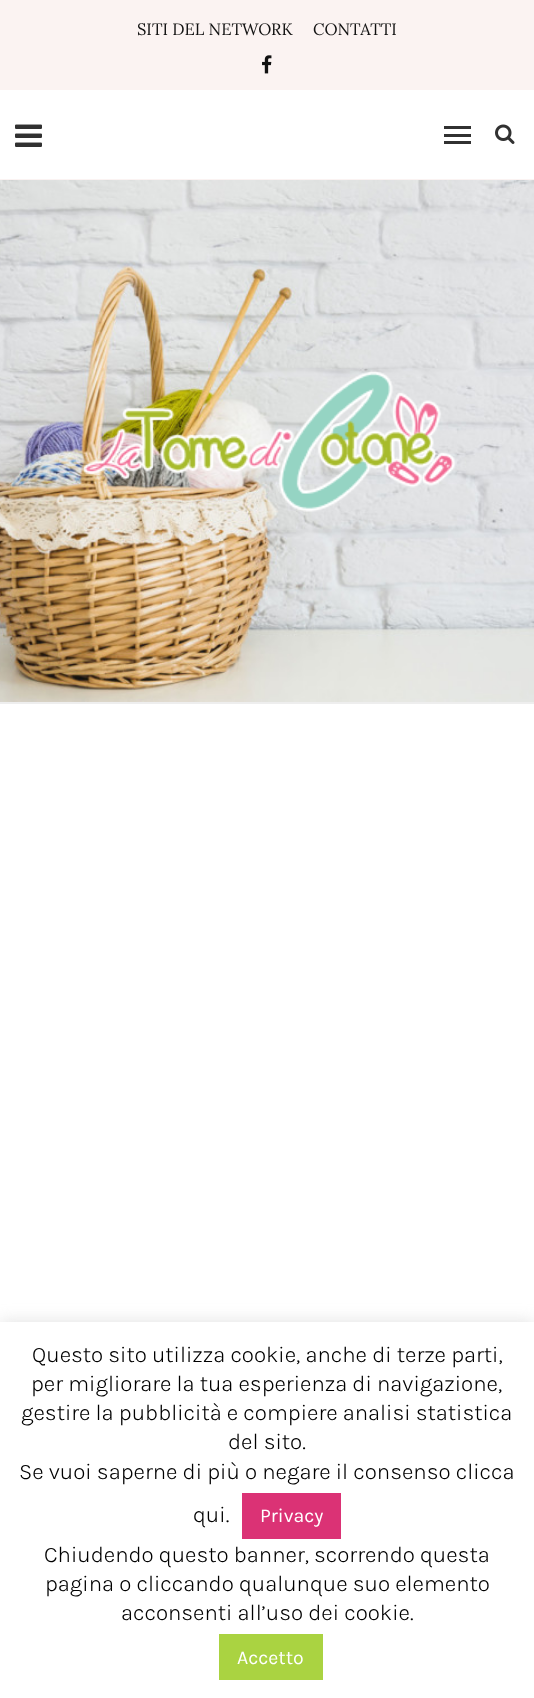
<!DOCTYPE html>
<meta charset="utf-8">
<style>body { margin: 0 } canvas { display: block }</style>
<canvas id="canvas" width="534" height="1698"></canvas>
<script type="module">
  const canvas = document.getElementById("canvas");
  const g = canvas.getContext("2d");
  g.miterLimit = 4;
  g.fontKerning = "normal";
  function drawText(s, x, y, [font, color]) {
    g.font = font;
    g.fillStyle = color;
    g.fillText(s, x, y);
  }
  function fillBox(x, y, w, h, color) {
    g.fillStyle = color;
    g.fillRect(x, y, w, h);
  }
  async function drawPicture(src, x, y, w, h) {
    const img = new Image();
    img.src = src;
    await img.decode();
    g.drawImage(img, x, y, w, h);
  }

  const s1 = ["16.5px Lora", "#111111"];
  const s2 = ["300 22.5px Karla", "#000000"];
  const s3 = ["19.5px Karla", "#FFFFFF"];

  fillBox(0, 0, 534, 1698, "#FFFFFF");
  fillBox(0, 0, 534, 90, "#FBF3F2");
  drawText("SITI DEL NETWORK", 137, 35, s1);
  drawText("CONTATTI", 313, 35, s1);
  await drawPicture("pic1.png", 262, 55, 10, 19);
  fillBox(0, 179, 534, 1, "#FBF3F2");
  await drawPicture("pic2.png", 15, 124, 27, 23);
  fillBox(444, 126, 27, 3, "#313131");
  fillBox(444, 141, 27, 3, "#313131");
  fillBox(444, 134, 27, 3, "#313131");
  await drawPicture("pic3.png", 495, 124, 20, 20);
  fillBox(0, 702, 534, 2, "#EEEEEE");
  await drawPicture("pic4.png", 0, 180, 534, 522);
  await drawPicture("pic5.png", 82, 370, 374, 142);
  g.fillStyle = "rgba(172, 171, 171, 0.3)";
  g.filter = "blur(7.5px)";
  g.beginPath();
  g.rect(0, 1320, 534, 377);
  g.fill();
  g.filter = "none";
  fillBox(0, 1322, 534, 376, "#FFFFFF");
  drawText("Questo sito utilizza cookie, anche di terze parti,", 32, 1362, s2);
  drawText("per migliorare la tua esperienza di navigazione,", 31, 1391, s2);
  drawText("gestire la pubblicità e compiere analisi statistica", 21, 1420, s2);
  drawText("del sito.", 228, 1449, s2);
  drawText("Se vuoi saperne di più o negare il consenso clicca", 19, 1479, s2);
  drawText("qui.", 193, 1522, s2);
  fillBox(242, 1493, 99, 46, "#DB3275");
  drawText("Privacy", 260, 1522, s3);
  drawText("Chiudendo questo banner, scorrendo questa", 44, 1562, s2);
  drawText("pagina o cliccando qualunque suo elemento", 45, 1591, s2);
  drawText("acconsenti all’uso dei cookie.", 121, 1620, s2);
  fillBox(219, 1634, 104, 46, "#AAD341");
  drawText("Accetto", 237, 1664, s3);
</script>
